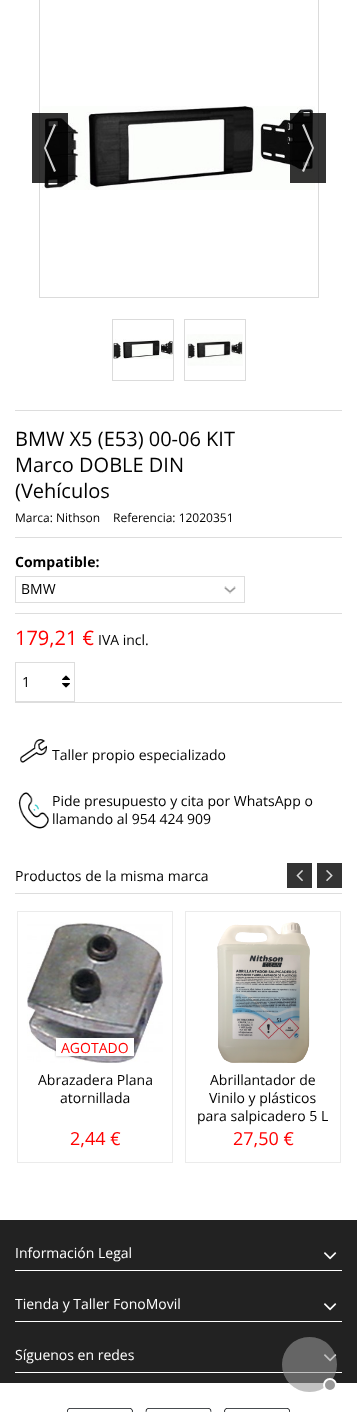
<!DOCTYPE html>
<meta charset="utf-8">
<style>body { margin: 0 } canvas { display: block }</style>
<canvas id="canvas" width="357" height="1412"></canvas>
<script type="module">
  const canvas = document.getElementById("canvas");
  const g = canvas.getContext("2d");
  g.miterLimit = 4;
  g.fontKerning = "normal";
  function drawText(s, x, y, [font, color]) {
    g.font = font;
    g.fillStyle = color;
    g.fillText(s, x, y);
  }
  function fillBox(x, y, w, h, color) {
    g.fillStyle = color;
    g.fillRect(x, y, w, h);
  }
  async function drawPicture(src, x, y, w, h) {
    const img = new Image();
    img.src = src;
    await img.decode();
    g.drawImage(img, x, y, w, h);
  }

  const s1 = ["20px Open Sans", "#000000"];
  const s2 = ["12px Open Sans", "#000000"];
  const s3 = ["bold 14px Open Sans", "#000000"];
  const s4 = ["14px Open Sans", "#000000"];
  const s5 = ["20px Open Sans", "#FF0000"];
  const s6 = ["14px Open Sans", "#FF0000"];
  const s7 = ["18px Open Sans", "#FF0000"];
  const s8 = ["14px Open Sans", "#FFFFFF"];

  fillBox(0, 0, 357, 1412, "#FFFFFF");
  g.strokeStyle = "#DBDBDB";
  g.strokeRect(39.5, -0.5, 279, 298);
  await drawPicture("pic1.png", 40, 106, 275, 84);
  fillBox(32, 113, 36, 70, "rgba(0, 0, 0, 0.8)");
  g.fillStyle = "rgba(255, 255, 255, 0.8)";
  g.beginPath();
  g.moveTo(46, 148);
  g.lineTo(56, 125);
  g.lineTo(54, 124);
  g.lineTo(44, 148);
  g.closePath();
  g.moveTo(54, 172);
  g.lineTo(56, 171);
  g.lineTo(46, 148);
  g.lineTo(44, 148);
  g.closePath();
  g.fill();
  fillBox(290, 113, 36, 70, "rgba(0, 0, 0, 0.8)");
  g.fillStyle = "rgba(255, 255, 255, 0.8)";
  g.beginPath();
  g.moveTo(312, 148);
  g.lineTo(302, 125);
  g.lineTo(304, 124);
  g.lineTo(314, 148);
  g.closePath();
  g.moveTo(304, 172);
  g.lineTo(302, 171);
  g.lineTo(312, 148);
  g.lineTo(314, 148);
  g.closePath();
  g.fill();
  g.strokeRect(112.5, 319.5, 61, 61);
  await drawPicture("pic2.png", 113, 339, 60, 20);
  g.strokeRect(184.5, 319.5, 61, 61);
  await drawPicture("pic3.png", 186, 334, 57, 32);
  fillBox(15, 410, 327, 1, "#DDDDDD");
  drawText("BMW X5 (E53) 00-06 KIT", 15, 446, s1);
  drawText("Marco DOBLE DIN", 15, 472, s1);
  drawText("(Vehículos", 15, 498, s1);
  drawText("Marca: Nithson", 15, 522, s2);
  drawText("Referencia: 12020351", 113, 522, s2);
  fillBox(15, 537, 327, 1, "#DDDDDD");
  drawText("Compatible:", 15, 567, s3);
  await drawPicture("pic4.png", 224, 586, 12, 8);
  g.strokeStyle = "#DDDDDD";
  g.strokeRect(15.5, 576.5, 229, 26);
  drawText("BMW", 21, 594, s4);
  fillBox(15, 613, 327, 1, "#DDDDDD");
  drawText("179,21 €", 15, 645, s5);
  drawText("IVA incl.", 98, 645, s4);
  g.strokeRect(15.5, 662.5, 59, 39);
  drawText("1", 22, 687, s4);
  await drawPicture("pic5.png", 62, 675, 8, 5);
  await drawPicture("pic6.png", 62, 683, 8, 5);
  fillBox(15, 702, 327, 1, "#DDDDDD");
  await drawPicture("pic7.png", 20, 739, 27, 24);
  drawText("Taller propio especializado", 52, 760, s4);
  await drawPicture("pic8.png", 18, 792, 31, 37);
  drawText("Pide presupuesto y cita por WhatsApp o", 52, 806, s4);
  drawText("llamando al 954 424 909", 52, 824, s4);
  fillBox(15, 893, 327, 1, "#DDDDDD");
  drawText("Productos de la misma marca", 15, 881, s4);
  fillBox(287, 863, 25, 25, "#333333");
  await drawPicture("pic9.png", 296, 870, 7, 12);
  fillBox(317, 863, 25, 25, "#333333");
  await drawPicture("pic10.png", 326, 870, 7, 12);
  g.strokeStyle = "#EBEBEB";
  g.strokeRect(17.5, 911.5, 155, 251);
  await drawPicture("pic11.png", 27, 922, 136, 141);
  g.fillStyle = "rgba(0, 0, 0, 0.15)";
  g.filter = "blur(1px)";
  g.beginPath();
  g.rect(56, 1039, 78, 18);
  g.fill();
  g.filter = "none";
  fillBox(56, 1038, 78, 18, "#FFFFFF");
  drawText("AGOTADO", 61, 1053, s6);
  drawText("Abrazadera Plana", 38, 1085, s4);
  drawText("atornillada", 60, 1103, s4);
  drawText("2,44 €", 70, 1145, s7);
  g.strokeRect(185.5, 911.5, 155, 251);
  await drawPicture("pic12.png", 217, 922, 93, 141);
  await drawPicture("pic13.png", 217, 922, 93, 141);
  drawText("Abrillantador de", 210, 1085, s4);
  drawText("Vinilo y plásticos", 209, 1103, s4);
  drawText("para salpicadero 5 L", 197, 1121, s4);
  drawText("27,50 €", 233, 1145, s7);
  fillBox(0, 1220, 357, 163, "#222222");
  fillBox(15, 1270, 327, 1, "#FFFFFF");
  drawText("Información Legal", 15, 1258, s8);
  await drawPicture("pic14.png", 324, 1252, 13, 8);
  fillBox(15, 1321, 327, 1, "#FFFFFF");
  drawText("Tienda y Taller FonoMovil", 15, 1309, s8);
  await drawPicture("pic14.png", 324, 1303, 13, 8);
  fillBox(15, 1372, 327, 1, "#FFFFFF");
  drawText("Síguenos en redes", 15, 1360, s8);
  await drawPicture("pic14.png", 324, 1354, 13, 8);
  g.fillStyle = "rgba(153, 153, 153, 0.25)";
  g.beginPath();
  g.arc(309.5, 1364.5, 27.5, 0, Math.PI * 2);
  g.fill();
  g.beginPath();
  g.arc(309.5, 1364.5, 27.5, 0, Math.PI * 2);
  g.fill();
  g.beginPath();
  g.arc(309.5, 1364.5, 27.5, 0, Math.PI * 2);
  g.fill();
  g.fillStyle = "#999999";
  g.beginPath();
  g.arc(330, 1385, 6, 0, Math.PI * 2);
  g.fill();
  g.strokeStyle = "#FFFFFF";
  g.lineWidth = 2;
  g.stroke();
  await drawPicture("pic15.png", 67, 1408, 223, 4);
</script>
